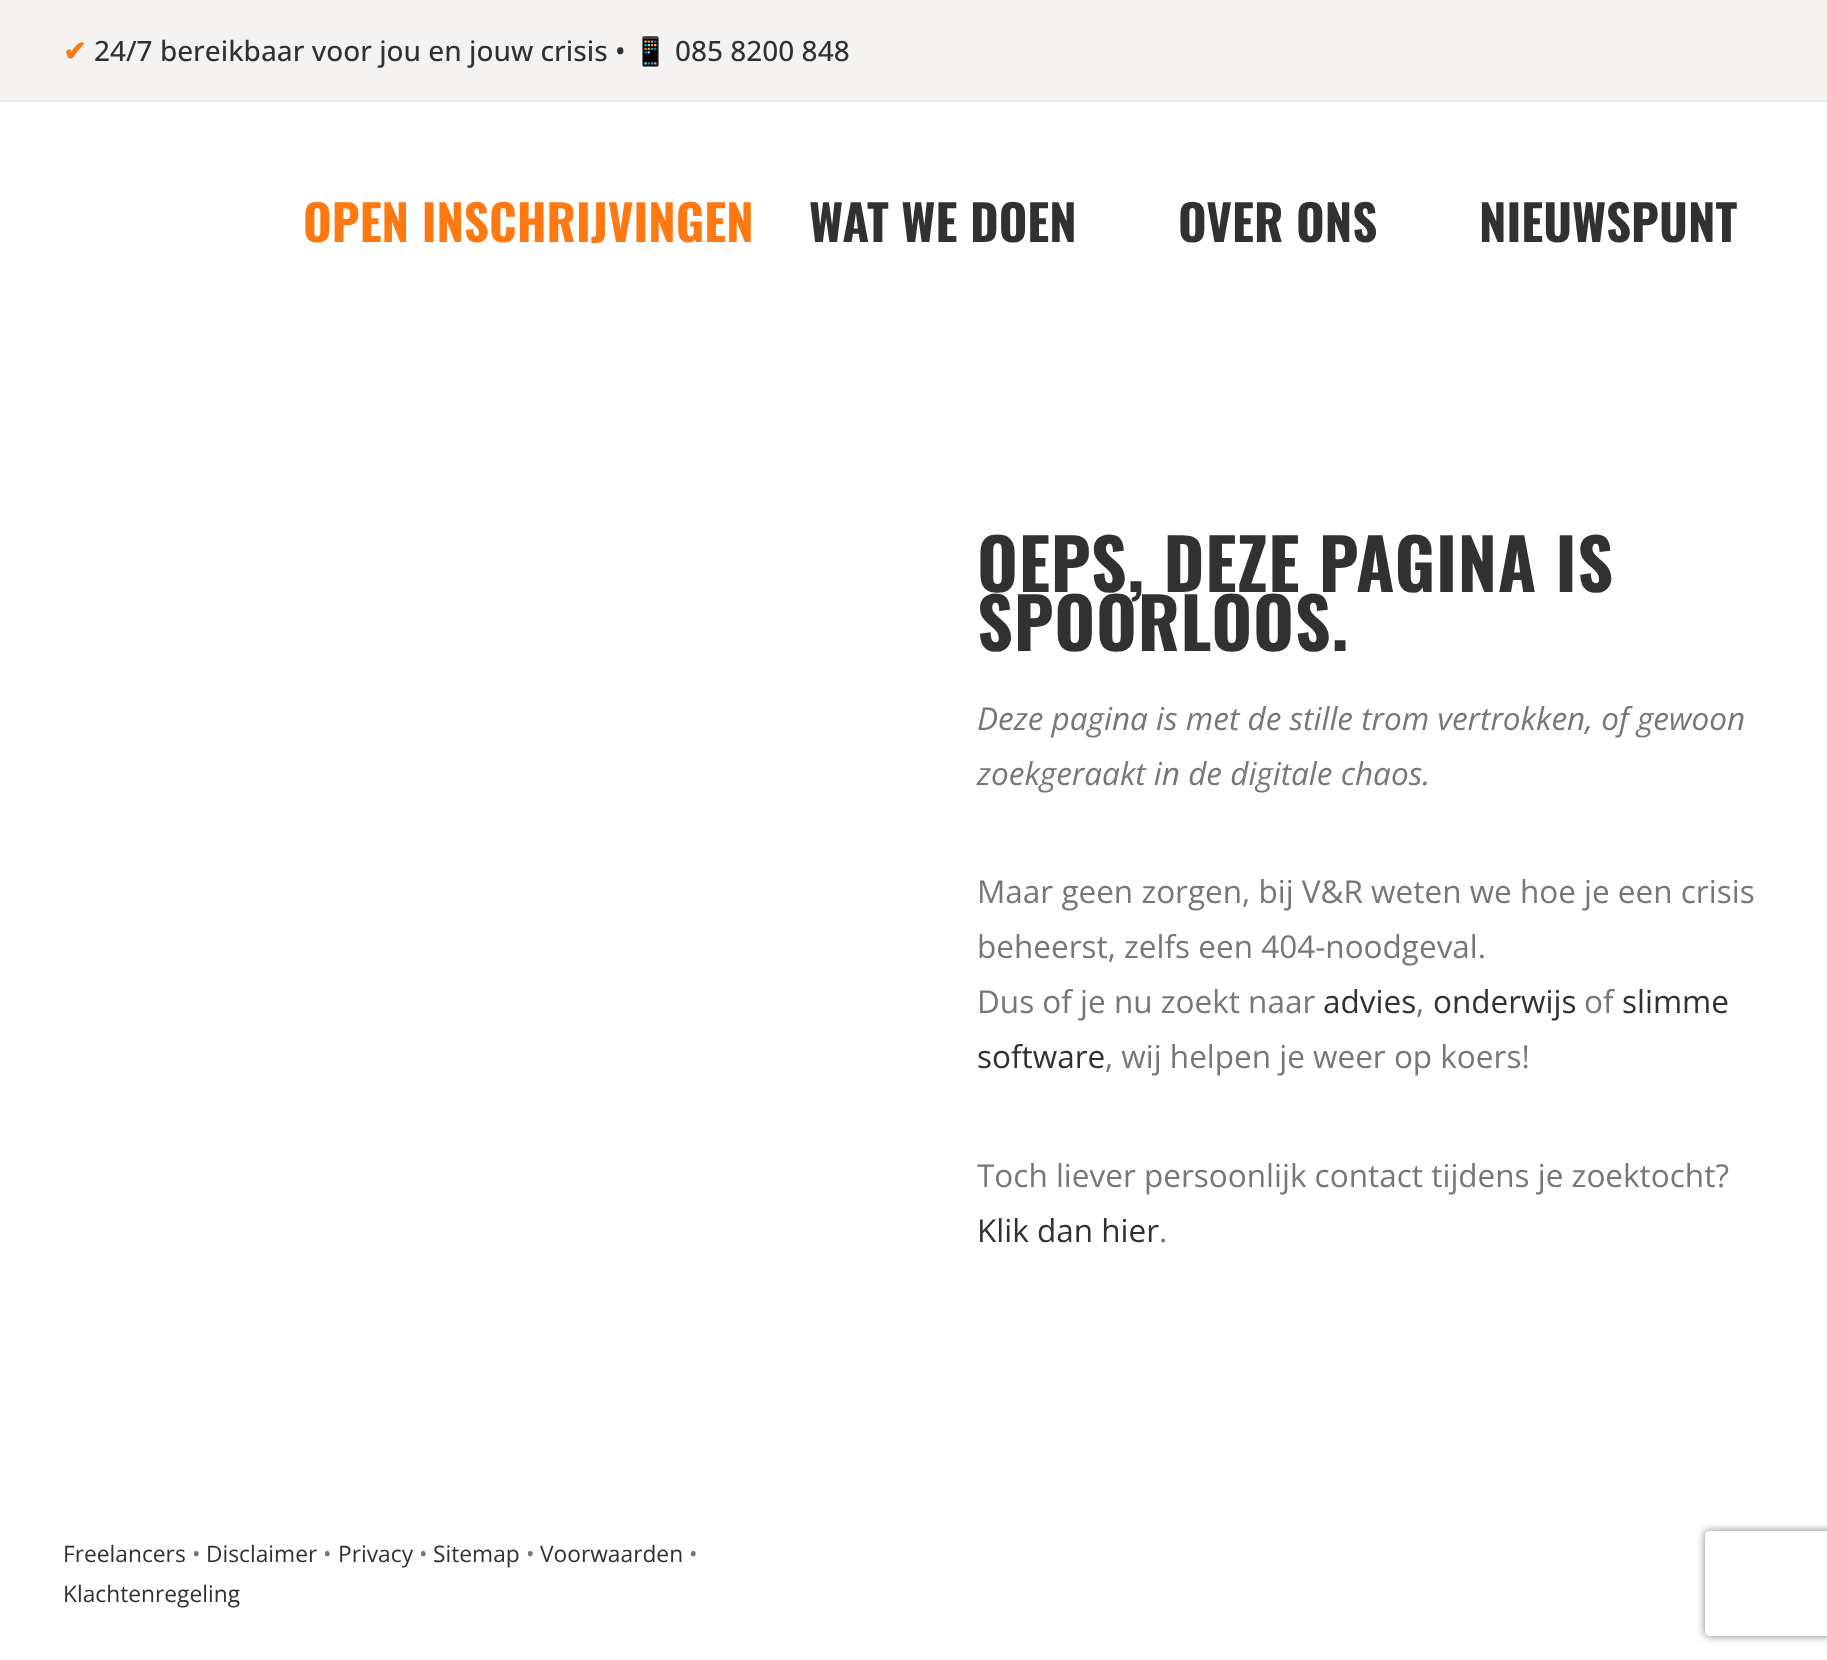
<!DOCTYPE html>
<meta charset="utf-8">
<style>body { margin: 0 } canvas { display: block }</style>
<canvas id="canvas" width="1827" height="1660"></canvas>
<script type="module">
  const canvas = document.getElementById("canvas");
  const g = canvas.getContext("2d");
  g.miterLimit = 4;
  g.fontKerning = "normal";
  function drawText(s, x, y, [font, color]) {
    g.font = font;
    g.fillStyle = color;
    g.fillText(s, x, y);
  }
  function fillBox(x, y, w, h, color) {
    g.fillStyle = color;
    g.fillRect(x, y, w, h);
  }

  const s1 = ["bold 28px DejaVu Sans", "#FF7912"];
  const s2 = ["500 28px Open Sans", "#303133"];
  const s3 = ["28px Noto Color Emoji", "#FF7912"];
  const s4 = ["bold 49px Oswald", "#FF7912"];
  const s5 = ["bold 49px Oswald", "#303133"];
  const s6 = ["bold 70px Oswald", "#303133"];
  const s7 = ["italic 31.5px Open Sans", "#777777"];
  const s8 = ["31.5px Open Sans", "#777777"];
  const s9 = ["31.5px Open Sans", "#303133"];
  const s10 = ["22.75px Open Sans", "#303133"];
  const s11 = ["22.75px Open Sans", "#777777"];

  fillBox(0, 0, 1827, 1660, "#FFFFFF");
  fillBox(0, 0, 1827, 100, "#F4F3F1");
  drawText("✔", 63, 61, s1);
  drawText("24/7 bereikbaar voor jou en jouw crisis •", 94, 61, s2);
  drawText("📱", 633, 61, s3);
  drawText("085 8200 848", 675, 61, s2);
  fillBox(0, 100, 1827, 2, "#EAEAEA");
  drawText("OPEN INSCHRIJVINGEN", 303, 242, s4);
  drawText("WAT WE DOEN", 809, 242, s5);
  drawText("OVER ONS", 1178, 242, s5);
  drawText("NIEUWSPUNT", 1479, 242, s5);
  g.letterSpacing = "0.7px";
  drawText("OEPS, DEZE PAGINA IS", 977, 592, s6);
  drawText("SPOORLOOS.", 977, 651, s6);
  g.letterSpacing = "0px";
  drawText("Deze pagina is met de stille trom vertrokken, of gewoon", 977, 730, s7);
  drawText("zoekgeraakt in de digitale chaos.", 977, 785, s7);
  drawText("Maar geen zorgen, bij V&R weten we hoe je een crisis", 977, 903, s8);
  drawText("beheerst, zelfs een 404-noodgeval.", 977, 958, s8);
  drawText("Dus of je nu zoekt naar", 977, 1013, s8);
  drawText("advies", 1323, 1013, s9);
  drawText(",", 1416, 1013, s8);
  drawText("onderwijs", 1433, 1013, s9);
  drawText("of", 1584, 1013, s8);
  drawText("slimme", 1622, 1013, s9);
  drawText("software", 977, 1068, s9);
  drawText(", wij helpen je weer op koers!", 1105, 1068, s8);
  drawText("Toch liever persoonlijk contact tijdens je zoektocht?", 977, 1187, s8);
  drawText("Klik dan hier", 977, 1242, s9);
  drawText(".", 1159, 1242, s8);
  drawText("Freelancers", 63, 1562, s10);
  drawText("•", 192, 1562, s11);
  drawText("Disclaimer", 206, 1562, s10);
  drawText("•", 323, 1562, s11);
  drawText("Privacy", 338, 1562, s10);
  drawText("•", 419, 1562, s11);
  drawText("Sitemap", 433, 1562, s10);
  drawText("•", 526, 1562, s11);
  drawText("Voorwaarden", 540, 1562, s10);
  drawText("•", 689, 1562, s11);
  drawText("Klachtenregeling", 63, 1602, s10);
  g.save();
  g.beginPath();
  g.moveTo(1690, 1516);
  g.lineTo(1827, 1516);
  g.lineTo(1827, 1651);
  g.lineTo(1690, 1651);
  g.closePath();
  g.moveTo(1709, 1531);
  g.lineTo(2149, 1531);
  g.bezierCurveTo(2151, 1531, 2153, 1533, 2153, 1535);
  g.lineTo(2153, 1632);
  g.bezierCurveTo(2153, 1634, 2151, 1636, 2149, 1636);
  g.lineTo(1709, 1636);
  g.bezierCurveTo(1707, 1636, 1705, 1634, 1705, 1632);
  g.lineTo(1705, 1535);
  g.bezierCurveTo(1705, 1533, 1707, 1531, 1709, 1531);
  g.closePath();
  g.clip("evenodd");
  g.fillStyle = "#808080";
  g.filter = "blur(4.5px)";
  g.beginPath();
  g.roundRect(1705, 1531, 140, 105, 4);
  g.fill();
  g.filter = "none";
  g.restore();
</script>
